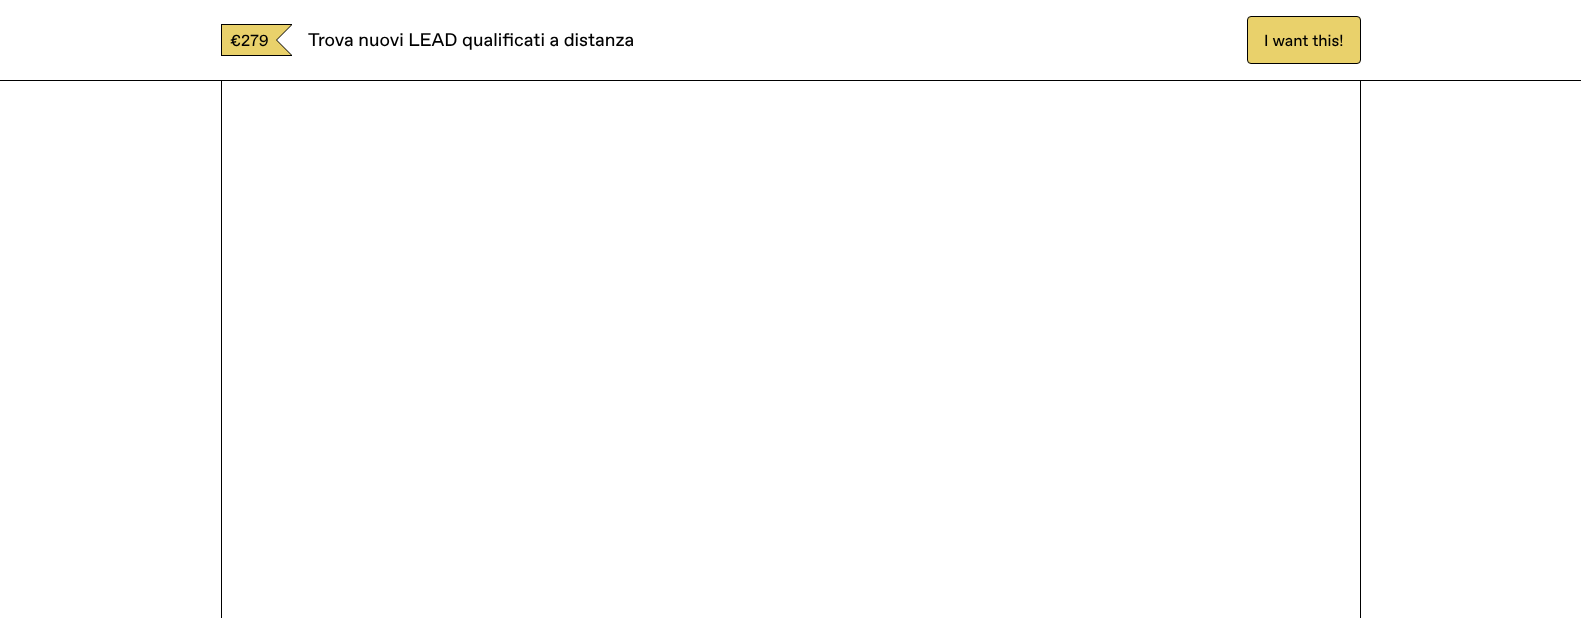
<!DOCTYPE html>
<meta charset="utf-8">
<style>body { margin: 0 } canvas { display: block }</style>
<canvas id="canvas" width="1581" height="618"></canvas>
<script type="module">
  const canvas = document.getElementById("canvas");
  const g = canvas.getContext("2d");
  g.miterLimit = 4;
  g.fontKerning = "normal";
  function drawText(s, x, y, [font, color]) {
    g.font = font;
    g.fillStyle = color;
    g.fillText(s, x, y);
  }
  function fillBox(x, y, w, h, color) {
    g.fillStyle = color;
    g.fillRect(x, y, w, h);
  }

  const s1 = ["16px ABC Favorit", "#000000"];
  const s2 = ["18.4px ABC Favorit", "#000000"];

  fillBox(0, 0, 1581, 618, "#FFFFFF");
  g.strokeStyle = "#000000";
  g.strokeRect(221.5, 64.5, 1139, 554);
  fillBox(0, 80, 1581, 1, "#000000");
  fillBox(221, 64, 1140, 16, "#FFFFFF");
  fillBox(221, 24, 71, 1, "#000000");
  fillBox(221, 55, 71, 1, "#000000");
  fillBox(221, 24, 1, 32, "#000000");
  fillBox(222, 25, 54, 30, "#E9D16B");
  g.fillStyle = "#000000";
  g.beginPath();
  g.moveTo(276, 25);
  g.lineTo(292, 25);
  g.lineTo(277, 40);
  g.closePath();
  g.moveTo(292, 55);
  g.lineTo(276, 55);
  g.lineTo(277, 40);
  g.closePath();
  g.fill();
  fillBox(276, 39, 1, 2, "#000000");
  g.fillStyle = "#E9D16B";
  g.beginPath();
  g.moveTo(275, 25);
  g.lineTo(291, 25);
  g.lineTo(276, 40);
  g.closePath();
  g.moveTo(291, 55);
  g.lineTo(275, 55);
  g.lineTo(276, 40);
  g.closePath();
  g.fill();
  drawText("€279", 230, 46, s1);
  drawText("Trova nuovi LEAD qualificati a distanza", 308, 46, s2);
  g.fillStyle = "#E9D16B";
  g.beginPath();
  g.roundRect(1247.5, 16.5, 113, 47, 3.5);
  g.fill();
  g.stroke();
  drawText("I want this!", 1264, 46, s1);
</script>
